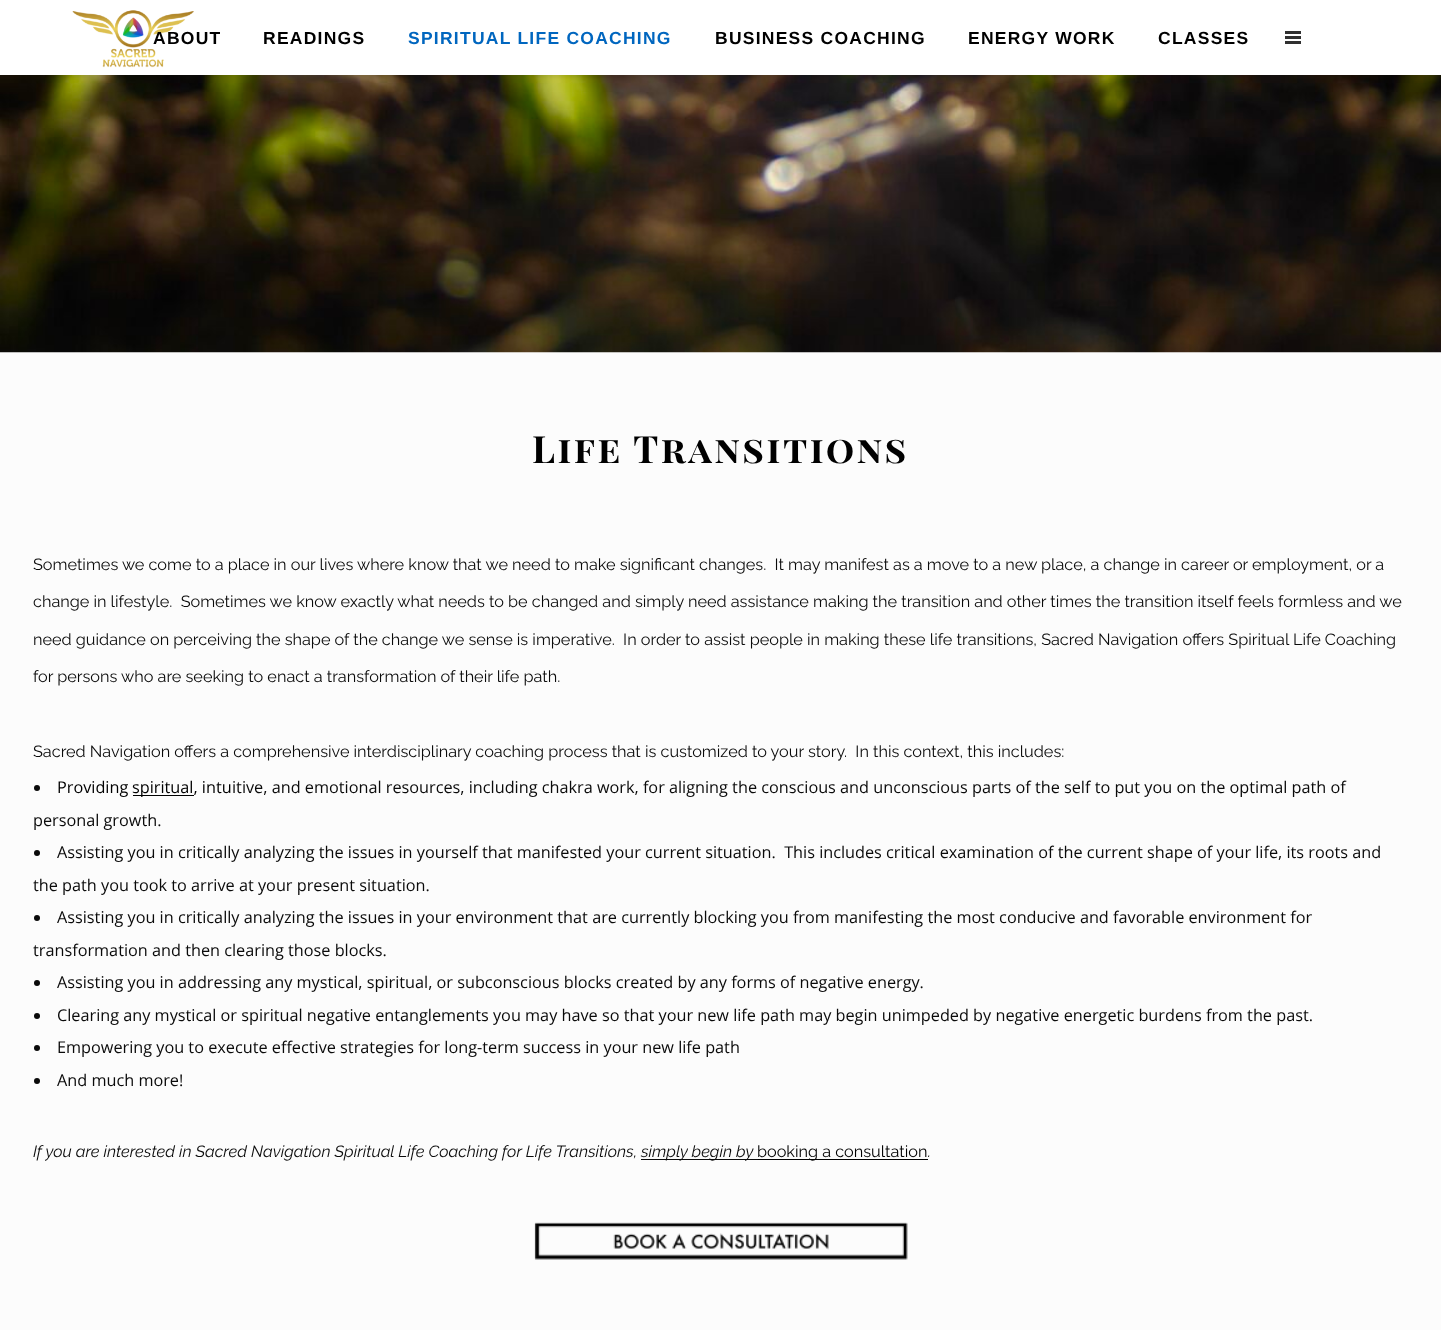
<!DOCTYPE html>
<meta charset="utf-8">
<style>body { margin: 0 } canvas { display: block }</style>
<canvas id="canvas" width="1441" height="1330"></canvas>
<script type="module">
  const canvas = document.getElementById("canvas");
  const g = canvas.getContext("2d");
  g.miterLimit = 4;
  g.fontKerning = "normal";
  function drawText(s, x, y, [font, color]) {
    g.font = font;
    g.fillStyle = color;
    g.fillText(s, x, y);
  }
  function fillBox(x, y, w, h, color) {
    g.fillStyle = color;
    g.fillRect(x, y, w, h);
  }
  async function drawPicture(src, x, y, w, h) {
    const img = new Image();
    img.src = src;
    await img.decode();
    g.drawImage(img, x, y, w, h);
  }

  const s1 = ["bold 17.5px Liberation Sans", "#000000"];
  const s2 = ["bold 17.5px Liberation Sans", "#0066BF"];
  const s3 = ["bold 37.5px Playfair Display SC", "#000000"];
  const s4 = ["16.25px Raleway", "#0A0A0A"];
  const s5 = ["16.25px Open Sans", "#000000"];
  const s6 = ["16.25px Open Sans", "#0A0A0A"];
  const s7 = ["italic 16.25px Raleway", "#0A0A0A"];
  const s8 = ["16.25px Raleway", "#000000"];

  fillBox(0, 0, 1441, 1330, "#FCFCFC");
  await drawPicture("pic2.png", 0, 75, 1441, 278);
  g.fillStyle = "rgba(0, 0, 0, 0.11)";
  g.filter = "blur(2px)";
  g.beginPath();
  g.rect(0, 1, 1441, 75);
  g.fill();
  g.filter = "none";
  fillBox(0, 0, 1441, 75, "#FFFFFF");
  await drawPicture("pic1.png", 72, 10, 122, 58);
  g.letterSpacing = "1.25px";
  drawText("ABOUT", 153, 44, s1);
  drawText("READINGS", 263, 44, s1);
  drawText("SPIRITUAL LIFE COACHING", 408, 44, s2);
  drawText("BUSINESS COACHING", 715, 44, s1);
  drawText("ENERGY WORK", 968, 44, s1);
  drawText("CLASSES", 1158, 44, s1);
  fillBox(1285, 36, 16, 3, "#303030");
  fillBox(1285, 31, 16, 3, "#303030");
  fillBox(1285, 41, 16, 3, "#303030");
  g.letterSpacing = "2.5px";
  drawText("Life Transitions", 532, 463, s3);
  g.letterSpacing = "0px";
  drawText("Sometimes we come to a place in our lives where know that we need to make significant changes.  It may manifest as a move to a new place, a change in career or employment, or a", 33, 570, s4);
  drawText("change in lifestyle.  Sometimes we know exactly what needs to be changed and simply need assistance making the transition and other times the transition itself feels formless and we", 33, 607, s4);
  drawText("need guidance on perceiving the shape of the change we sense is imperative.  In order to assist people in making these life transitions, Sacred Navigation offers Spiritual Life Coaching", 33, 645, s4);
  drawText("for persons who are seeking to enact a transformation of their life path.", 33, 682, s4);
  drawText("Sacred Navigation offers a comprehensive interdisciplinary coaching process that is customized to your story.  In this context, this includes:", 33, 757, s4);
  g.beginPath();
  g.arc(37, 788, 3, 0, Math.PI * 2);
  g.fill();
  drawText("Providing", 57, 793, s5);
  fillBox(133, 795, 61, 1, "#000000");
  drawText("spiritual, intu", 132, 793, s5);
  drawText("itive, and emotional resources, including chakra work, for aligning the conscious and unconscious parts of the self to put you on the optimal path of", 232, 793, s6);
  drawText("personal growth.", 33, 826, s6);
  g.beginPath();
  g.arc(37, 853, 3, 0, Math.PI * 2);
  g.fill();
  drawText("Assisting you in critically analyzing the issues in yourself that manifested your current situation.  This includes critical examination of the current shape of your life, its roots and", 57, 858, s6);
  drawText("the path you took to arrive at your present situation.", 33, 891, s6);
  g.beginPath();
  g.arc(37, 918, 3, 0, Math.PI * 2);
  g.fill();
  drawText("Assisting you in critically analyzing the issues in your environment that are currently blocking you from manifesting the most conducive and favorable environment for", 57, 923, s6);
  drawText("transformation and then clearing those blocks.", 33, 956, s6);
  g.beginPath();
  g.arc(37, 983, 3, 0, Math.PI * 2);
  g.fill();
  drawText("Assisting you in addressing any mystical, spiritual, or subconscious blocks created by any forms of negative energy.", 57, 988, s6);
  g.beginPath();
  g.arc(37, 1016, 3, 0, Math.PI * 2);
  g.fill();
  drawText("Clearing any mystical or spiritual negative entanglements you may have so that your new life path may begin unimpeded by negative energetic burdens from the past.", 57, 1021, s6);
  g.beginPath();
  g.arc(37, 1048, 3, 0, Math.PI * 2);
  g.fill();
  drawText("Empowering you to execute effective strategies for long-term success in your new life path", 57, 1053, s6);
  g.beginPath();
  g.arc(37, 1081, 3, 0, Math.PI * 2);
  g.fill();
  drawText("And much more!", 57, 1086, s6);
  drawText("If you are interested in Sacred Navigation Spiritual Life Coaching for Life Transitions,", 33, 1157, s7);
  fillBox(641, 1159, 117, 1, "#0A0A0A");
  drawText("simply begin by", 641, 1157, s7);
  fillBox(758, 1159, 170, 1, "#000000");
  drawText("booking a consultation", 757, 1157, s8);
  drawText(".", 928, 1157, s7);
  await drawPicture("pic3.png", 534, 1222, 374, 38);
</script>
